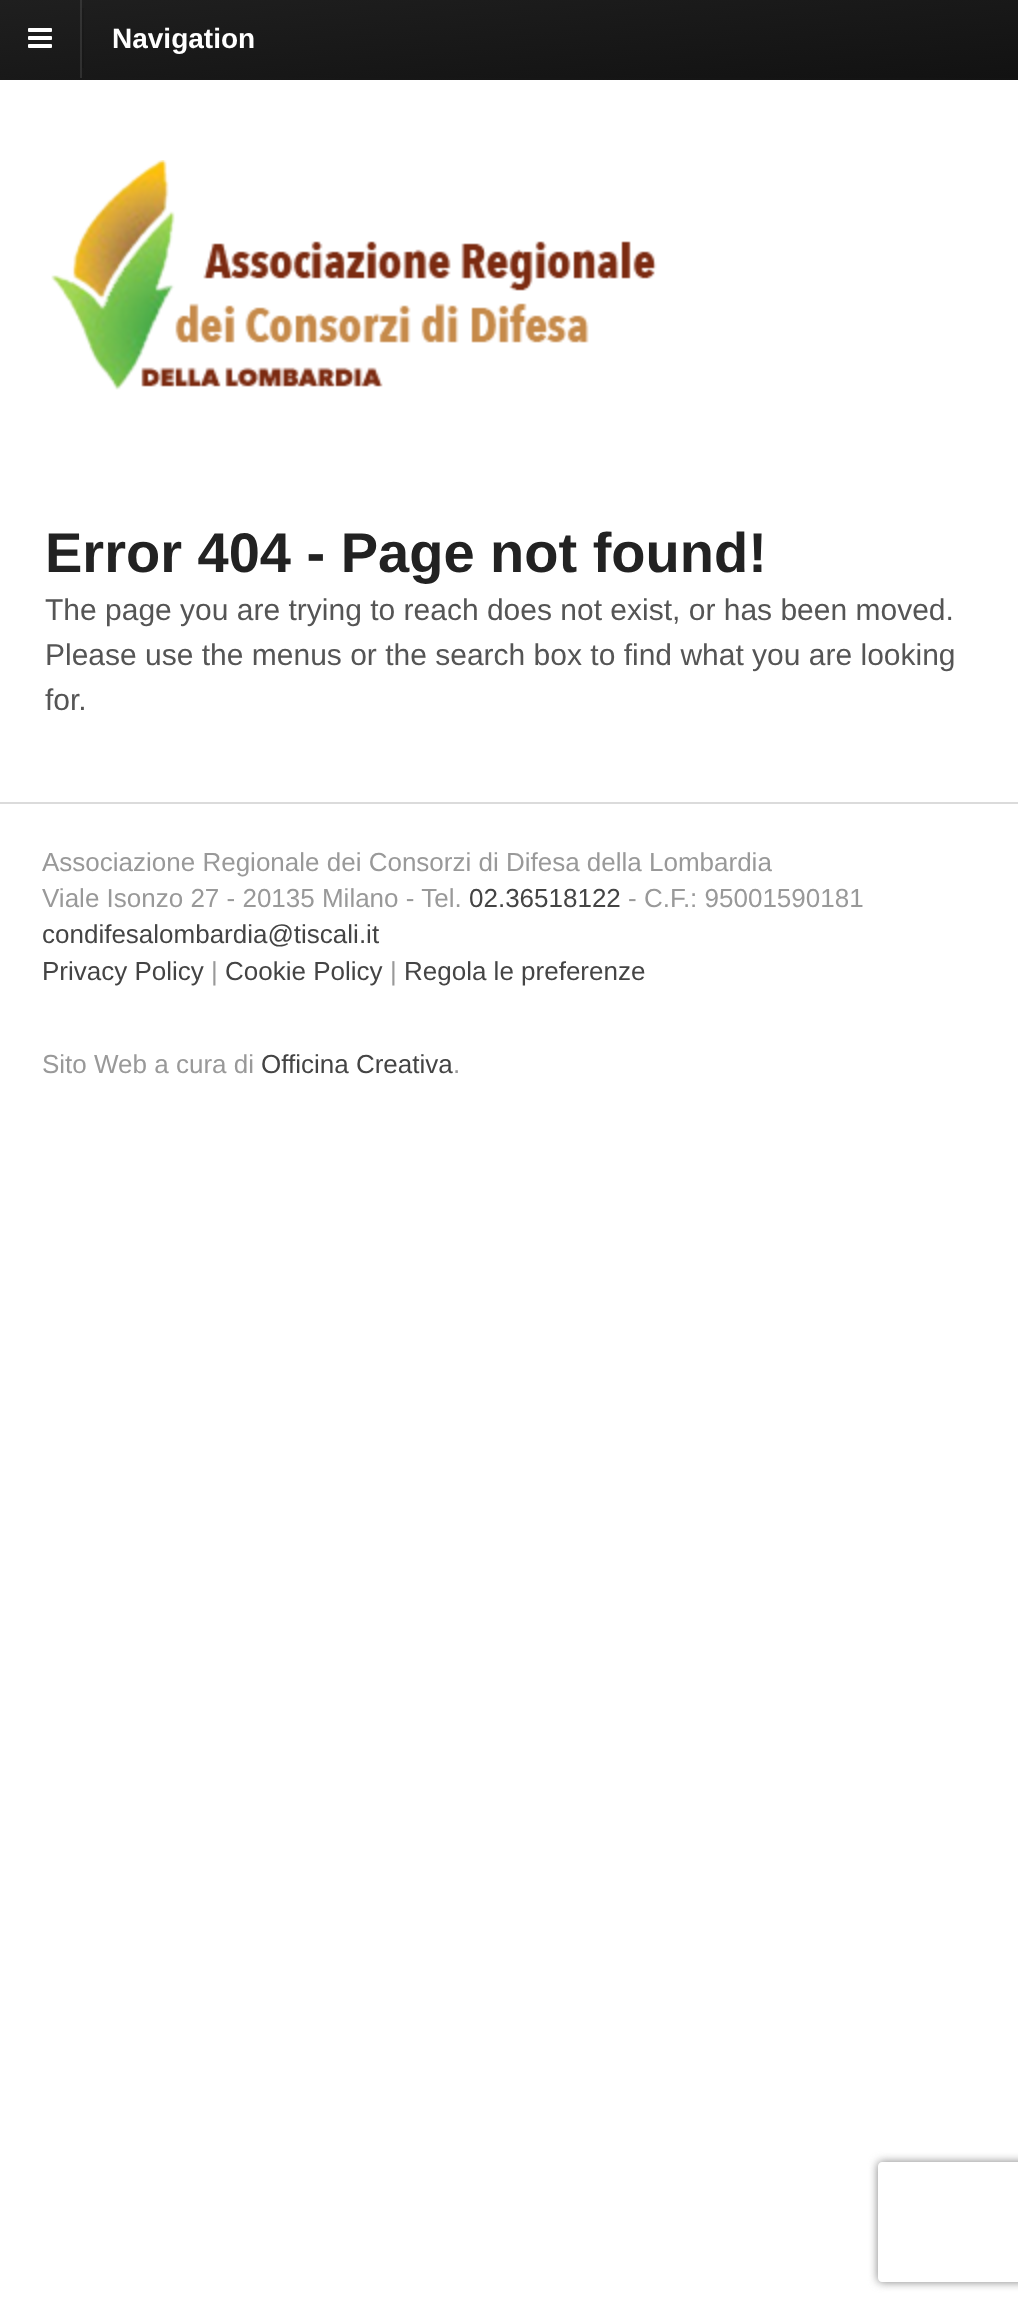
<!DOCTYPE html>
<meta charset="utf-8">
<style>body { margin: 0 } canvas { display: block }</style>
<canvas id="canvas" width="1018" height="2310"></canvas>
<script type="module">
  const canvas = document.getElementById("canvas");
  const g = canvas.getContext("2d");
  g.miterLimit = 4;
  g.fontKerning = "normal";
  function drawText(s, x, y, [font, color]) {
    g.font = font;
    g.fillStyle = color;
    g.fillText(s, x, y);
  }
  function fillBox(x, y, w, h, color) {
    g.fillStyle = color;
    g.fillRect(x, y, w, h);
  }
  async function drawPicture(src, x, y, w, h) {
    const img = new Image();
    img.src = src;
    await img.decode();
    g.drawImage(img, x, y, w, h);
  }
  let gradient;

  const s1 = ["bold 28px Liberation Sans", "#FFFFFF"];
  const s2 = ["bold 56px Liberation Sans", "#222222"];
  const s3 = ["30px Liberation Sans", "#555555"];
  const s4 = ["26px Liberation Sans", "#999999"];
  const s5 = ["26px Liberation Sans", "#444444"];

  fillBox(0, 0, 1018, 2310, "#FFFFFF");
  gradient = g.createLinearGradient(503, -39, 515, 117);
  gradient.addColorStop(0, "#1F1F1F");
  gradient.addColorStop(1, "#121212");
  g.fillStyle = gradient;
  g.fillRect(0, 0, 1018, 78);
  gradient = g.createLinearGradient(503, -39, 515, 117);
  gradient.addColorStop(0, "#1C1C1C");
  gradient.addColorStop(1, "#101010");
  g.fillStyle = gradient;
  g.fillRect(82, 8, 2, 60);
  gradient = g.createLinearGradient(503, -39, 515, 117);
  gradient.addColorStop(0, "#353535");
  gradient.addColorStop(1, "#2A2A2A");
  g.fillStyle = gradient;
  g.fillRect(80, 0, 2, 78);
  gradient = g.createLinearGradient(503, 39, 515, 195);
  gradient.addColorStop(0, "#191919");
  gradient.addColorStop(1, "#0E0E0E");
  g.fillStyle = gradient;
  g.fillRect(0, 78, 1018, 2);
  await drawPicture("pic1.png", 28, 28, 24, 20);
  drawText("Navigation", 112, 48, s1);
  await drawPicture("pic2.png", 51, 160, 606, 230);
  drawText("Error 404 - Page not found!", 45, 572, s2);
  drawText("The page you are trying to reach does not exist, or has been moved.", 45, 620, s3);
  drawText("Please use the menus or the search box to find what you are looking", 45, 665, s3);
  drawText("for.", 45, 710, s3);
  fillBox(0, 802, 1018, 2, "#DBDBDB");
  drawText("Associazione Regionale dei Consorzi di Difesa della Lombardia", 42, 871, s4);
  drawText("Viale Isonzo 27 - 20135 Milano - Tel.", 42, 907, s4);
  drawText("02.36518122", 469, 907, s5);
  drawText("- C.F.: 95001590181", 628, 907, s4);
  drawText("condifesalombardia@tiscali.it", 42, 943, s5);
  drawText("Privacy Policy", 42, 980, s5);
  drawText("|", 211, 980, s4);
  drawText("Cookie Policy", 225, 980, s5);
  drawText("|", 390, 980, s4);
  drawText("Regola le preferenze", 404, 980, s5);
  drawText("Sito Web a cura di", 42, 1073, s4);
  drawText("Officina Creativa", 261, 1073, s5);
  drawText(".", 453, 1073, s4);
  g.save();
  g.beginPath();
  g.moveTo(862, 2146);
  g.lineTo(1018, 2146);
  g.lineTo(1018, 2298);
  g.lineTo(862, 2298);
  g.closePath();
  g.moveTo(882, 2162);
  g.lineTo(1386, 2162);
  g.bezierCurveTo(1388, 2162, 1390, 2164, 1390, 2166);
  g.lineTo(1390, 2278);
  g.bezierCurveTo(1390, 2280, 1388, 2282, 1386, 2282);
  g.lineTo(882, 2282);
  g.bezierCurveTo(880, 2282, 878, 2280, 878, 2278);
  g.lineTo(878, 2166);
  g.bezierCurveTo(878, 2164, 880, 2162, 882, 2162);
  g.closePath();
  g.clip("evenodd");
  g.fillStyle = "#808080";
  g.filter = "blur(5px)";
  g.beginPath();
  g.roundRect(878, 2162, 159, 120, 4);
  g.fill();
  g.filter = "none";
  g.restore();
</script>
